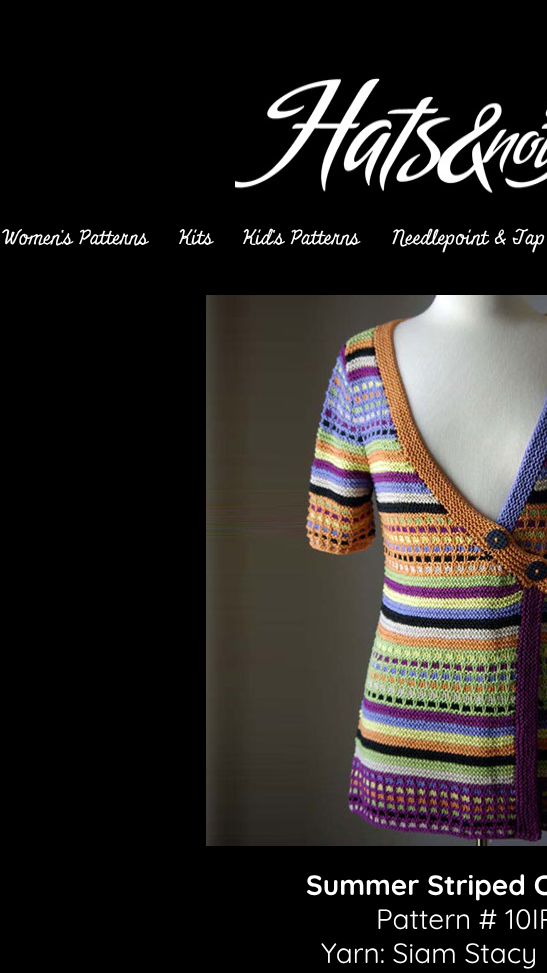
<!DOCTYPE html>
<meta charset="utf-8">
<style>body { margin: 0 } canvas { display: block }</style>
<canvas id="canvas" width="547" height="973"></canvas>
<script type="module">
  const canvas = document.getElementById("canvas");
  const g = canvas.getContext("2d");
  g.miterLimit = 4;
  g.fontKerning = "normal";
  function drawText(s, x, y, [font, color]) {
    g.font = font;
    g.fillStyle = color;
    g.fillText(s, x, y);
  }
  function fillBox(x, y, w, h, color) {
    g.fillStyle = color;
    g.fillRect(x, y, w, h);
  }
  async function drawPicture(src, x, y, w, h) {
    const img = new Image();
    img.src = src;
    await img.decode();
    g.drawImage(img, x, y, w, h);
  }

  const s1 = ["20px Miniver", "#FFFFFF"];
  const s2 = ["bold 28px Quicksand", "#FFFFFF"];
  const s3 = ["28px Quicksand", "#FFFFFF"];

  fillBox(0, 0, 547, 973, "#000000");
  await drawPicture("pic1.png", 235, 76, 312, 117);
  drawText("Women's Patterns", 3, 244, s1);
  drawText("Kits", 179, 244, s1);
  drawText("Kid's Patterns", 243, 244, s1);
  drawText("Needlepoint & Tap", 392, 244, s1);
  await drawPicture("pic2.png", 206, 295, 341, 551);
  drawText("Summer Striped C", 306, 895, s2);
  drawText("Pattern # 10IP", 376, 929, s3);
  drawText("Yarn: Siam Stacy", 321, 963, s3);
</script>
